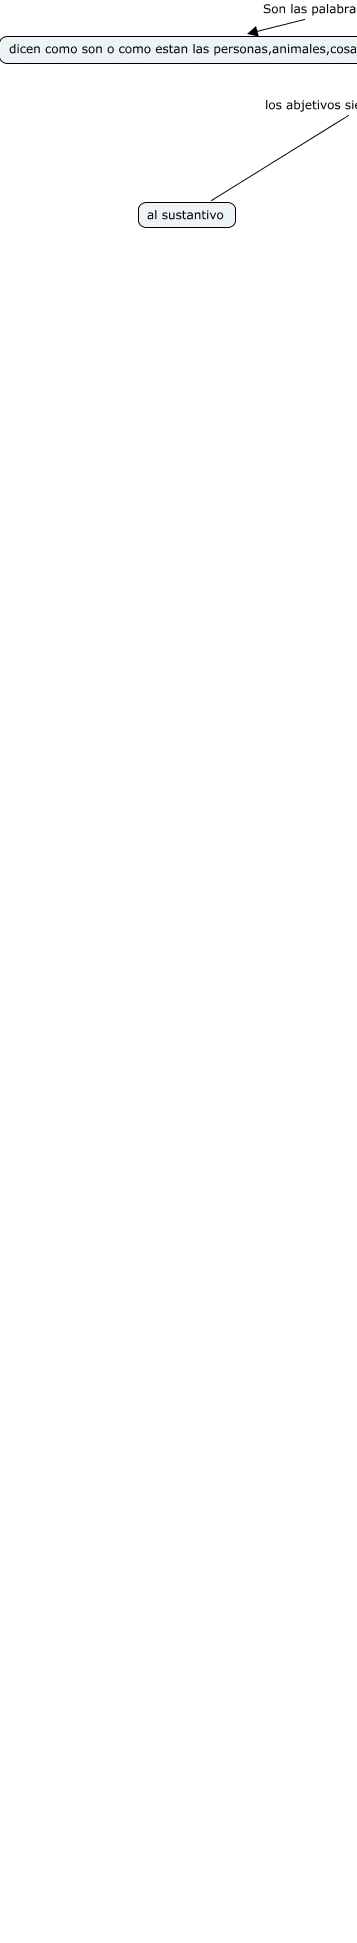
<!DOCTYPE html>
<meta charset="utf-8">
<style>body { margin: 0 } canvas { display: block }</style>
<canvas id="canvas" width="357" height="1943"></canvas>
<script type="module">
  const canvas = document.getElementById("canvas");
  const g = canvas.getContext("2d");
  g.miterLimit = 4;
  g.fontKerning = "normal";
  function fillBox(x, y, w, h, color) {
    g.fillStyle = color;
    g.fillRect(x, y, w, h);
  }
  async function drawPicture(src, x, y, w, h) {
    const img = new Image();
    img.src = src;
    await img.decode();
    g.drawImage(img, x, y, w, h);
  }

  fillBox(0, 0, 357, 1943, "#FFFFFF");
  await drawPicture("pic1.png", 0, 4, 357, 224);
</script>
